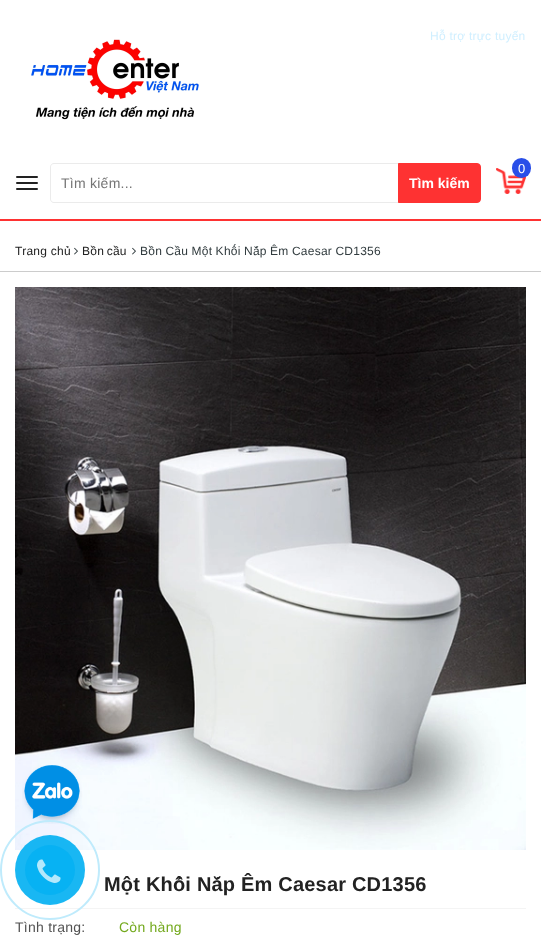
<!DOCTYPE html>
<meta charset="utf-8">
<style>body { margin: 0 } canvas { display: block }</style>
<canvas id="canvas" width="541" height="940"></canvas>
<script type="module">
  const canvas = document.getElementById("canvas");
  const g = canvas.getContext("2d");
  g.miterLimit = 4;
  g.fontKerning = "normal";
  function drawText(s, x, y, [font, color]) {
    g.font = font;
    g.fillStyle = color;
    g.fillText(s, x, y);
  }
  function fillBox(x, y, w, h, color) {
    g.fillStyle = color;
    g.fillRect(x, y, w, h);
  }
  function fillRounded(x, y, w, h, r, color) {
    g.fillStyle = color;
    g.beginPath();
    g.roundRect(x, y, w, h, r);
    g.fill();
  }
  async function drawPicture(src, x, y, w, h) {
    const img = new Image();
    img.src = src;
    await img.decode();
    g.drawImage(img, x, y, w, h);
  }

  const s1 = ["12px Liberation Sans", "#D0EFFF"];
  const s2 = ["13px Liberation Sans", "#FFFFFF"];
  const s3 = ["14px Liberation Sans", "#757575"];
  const s4 = ["bold 14px Liberation Sans", "#FFFFFF"];
  const s5 = ["12px Liberation Sans", "#222222"];
  const s6 = ["12px Liberation Sans", "#323C3F"];
  const s7 = ["bold 20px Liberation Sans", "#222222"];
  const s8 = ["14px Liberation Sans", "#525252"];
  const s9 = ["14px Liberation Sans", "#73A91D"];

  fillBox(0, 0, 541, 940, "#FFFFFF");
  g.letterSpacing = "0.25px";
  drawText("Hỗ trợ trực tuyến", 430, 40, s1);
  await drawPicture("pic1.png", 31, 39, 168, 81);
  await drawPicture("pic2.png", 496, 168, 30, 26);
  fillRounded(512, 158, 19, 20, 9.5, "#294EE8");
  drawText("0", 518, 173, s2);
  fillRounded(16, 176, 22, 2, 1, "#222222");
  fillRounded(16, 182, 22, 2, 1, "#222222");
  fillRounded(16, 188, 22, 2, 1, "#222222");
  g.fillStyle = "#EBEBEB";
  g.beginPath();
  g.moveTo(54, 163);
  g.lineTo(399, 163);
  g.lineTo(399, 203);
  g.lineTo(54, 203);
  g.bezierCurveTo(52, 203, 50, 201, 50, 199);
  g.lineTo(50, 167);
  g.bezierCurveTo(50, 165, 52, 163, 54, 163);
  g.closePath();
  g.moveTo(54, 164);
  g.lineTo(399, 164);
  g.lineTo(399, 202);
  g.lineTo(54, 202);
  g.bezierCurveTo(52, 202, 51, 201, 51, 199);
  g.lineTo(51, 167);
  g.bezierCurveTo(51, 165, 52, 164, 54, 164);
  g.closePath();
  g.fill("evenodd");
  drawText("Tìm kiếm...", 61, 188, s3);
  g.fillStyle = "#FE3232";
  g.beginPath();
  g.roundRect(398.5, 163.5, 82, 39, [0, 3.5, 3.5, 0]);
  g.fill();
  g.strokeStyle = "#FE3232";
  g.stroke();
  g.letterSpacing = "0px";
  drawText("Tìm kiếm", 409, 188, s4);
  fillBox(0, 219, 541, 2, "#FE3232");
  fillBox(0, 271, 541, 1, "#CCCCCC");
  g.letterSpacing = "0.25px";
  drawText("Trang chủ", 15, 255, s5);
  await drawPicture("pic3.png", 74, 247, 4, 8);
  g.wordSpacing = "-1px";
  drawText("Bồn cầu", 82, 255, s5);
  await drawPicture("pic3.png", 132, 247, 4, 8);
  g.wordSpacing = "-0.25px";
  drawText("Bồn Cầu Một Khối Nắp Êm Caesar CD1356", 140, 255, s6);
  await drawPicture("pic4.png", 15, 287, 511, 563);
  g.letterSpacing = "0.2px";
  g.wordSpacing = "0px";
  drawText("Một Khối Nắp Êm Caesar CD1356", 104, 891, s7);
  fillBox(15, 908, 511, 1, "#F4F4F4");
  g.letterSpacing = "0.25px";
  drawText("Tình trạng:", 15, 932, s8);
  drawText("Còn hàng", 119, 932, s9);
  await drawPicture("pic5.png", 22, 765, 60, 59);
  g.beginPath();
  g.arc(50, 870, 49, 0, Math.PI * 2);
  g.strokeStyle = "#BFEBFC";
  g.lineWidth = 2;
  g.stroke();
  g.fillStyle = "rgba(0, 175, 242, 0.9)";
  g.beginPath();
  g.arc(50, 870, 35, 0, Math.PI * 2);
  g.fill();
  g.fillStyle = "rgba(0, 175, 242, 0.7)";
  g.beginPath();
  g.arc(50, 870, 25, 0, Math.PI * 2);
  g.fill();
  await drawPicture("pic6.png", 37, 859, 24, 24);
</script>
